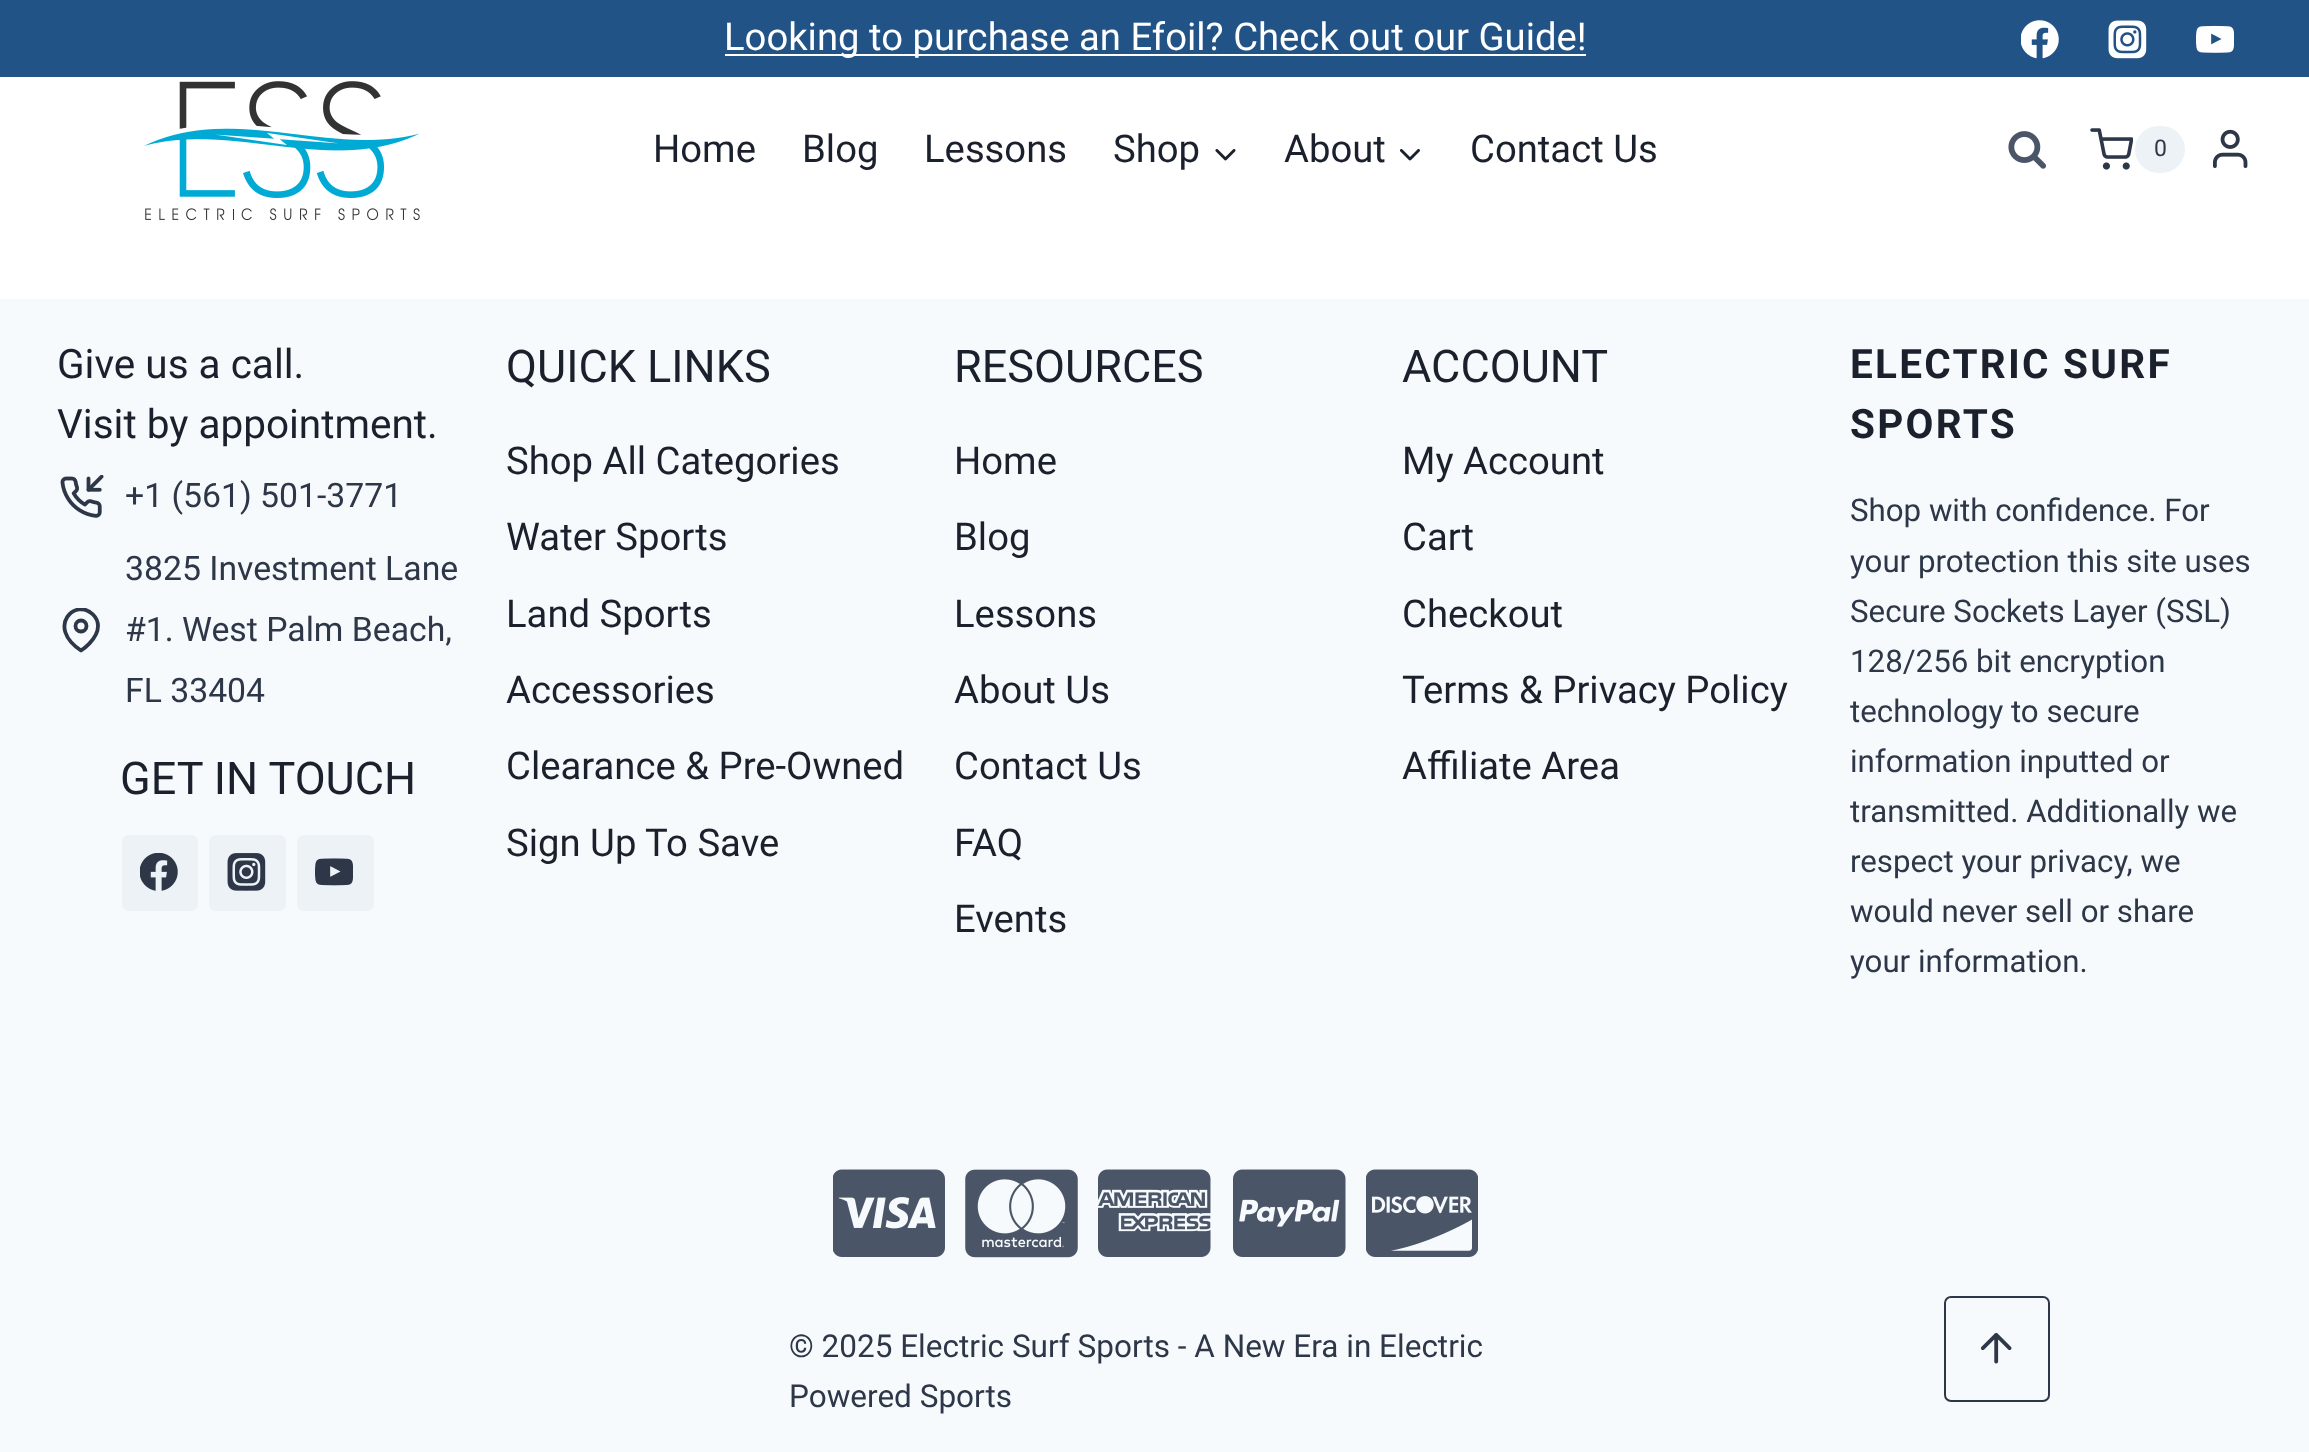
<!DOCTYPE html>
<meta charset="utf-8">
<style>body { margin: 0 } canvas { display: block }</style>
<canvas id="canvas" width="2309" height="1452"></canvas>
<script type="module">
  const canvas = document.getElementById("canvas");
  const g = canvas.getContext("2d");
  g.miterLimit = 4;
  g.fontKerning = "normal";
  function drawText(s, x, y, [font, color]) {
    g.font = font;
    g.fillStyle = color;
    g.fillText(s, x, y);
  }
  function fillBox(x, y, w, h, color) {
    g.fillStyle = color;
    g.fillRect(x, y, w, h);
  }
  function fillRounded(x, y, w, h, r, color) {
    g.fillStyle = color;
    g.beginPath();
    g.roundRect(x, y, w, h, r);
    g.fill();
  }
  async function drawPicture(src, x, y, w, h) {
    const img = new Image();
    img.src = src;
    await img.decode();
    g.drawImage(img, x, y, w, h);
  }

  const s1 = ["38.25px Roboto", "#FFFFFF"];
  const s2 = ["38.25px Roboto", "#1A202C"];
  const s3 = ["23px Roboto", "#2D3748"];
  const s4 = ["40.5px Roboto", "#1A202C"];
  const s5 = ["33.75px Roboto", "#2D3748"];
  const s6 = ["45px Roboto", "#1A202C"];
  const s7 = ["bold 40.5px Roboto", "#1A202C"];
  const s8 = ["31.25px Roboto", "#2D3748"];
  const s9 = ["31.5px Roboto", "#2D3748"];

  fillBox(0, 0, 2309, 1452, "#FFFFFF");
  fillBox(0, 0, 2309, 77, "#215387");
  fillBox(725, 54, 861, 2, "#FFFFFF");
  drawText("Looking to purchase an Efoil? Check out our Guide!", 724, 50, s1);
  await drawPicture("pic1.png", 2021, 20, 38, 39);
  await drawPicture("pic2.png", 2108, 20, 39, 39);
  await drawPicture("pic3.png", 2196, 25, 38, 28);
  await drawPicture("pic4.png", 144, 81, 276, 140);
  drawText("Home", 653, 162, s2);
  drawText("Blog", 802, 162, s2);
  drawText("Lessons", 924, 162, s2);
  drawText("Shop", 1113, 162, s2);
  await drawPicture("pic5.png", 1215, 149, 21, 12);
  drawText("About", 1284, 162, s2);
  await drawPicture("pic6.png", 1399, 149, 21, 12);
  drawText("Contact Us", 1470, 162, s2);
  await drawPicture("pic7.png", 2008, 131, 38, 38);
  await drawPicture("pic8.png", 2090, 128, 43, 42);
  fillRounded(2135, 126, 50, 47, 23.5, "#EDF2F7");
  drawText("0", 2154, 156, s3);
  await drawPicture("pic9.png", 2213, 129, 35, 39);
  fillBox(0, 299, 2309, 1153, "#F7FAFC");
  drawText("Give us a call.", 57, 378, s4);
  drawText("Visit by appointment.", 57, 438, s4);
  await drawPicture("pic10.png", 60, 475, 44, 43);
  drawText("+1 (561) 501-3771", 125, 507, s5);
  g.save();
  g.beginPath();
  g.rect(59, 608, 45, 45);
  g.clip();
  g.beginPath();
  g.moveTo(98, 626);
  g.bezierCurveTo(98, 639.5, 81, 650.5, 81, 650.5);
  g.bezierCurveTo(45.5, 627, 75.5, 597, 93, 614.5);
  g.bezierCurveTo(96, 617.5, 98, 622, 98, 626);
  g.closePath();
  g.strokeStyle = "#2D3748";
  g.lineWidth = 3.8;
  g.lineCap = "round";
  g.lineJoin = "round";
  g.stroke();
  g.restore();
  g.beginPath();
  g.arc(81, 626, 5.5, 0, Math.PI * 2);
  g.strokeStyle = "#2D3748";
  g.lineWidth = 3.8;
  g.stroke();
  drawText("3825 Investment Lane", 125, 580, s5);
  drawText("#1. West Palm Beach,", 125, 641, s5);
  drawText("FL 33404", 125, 702, s5);
  drawText("GET IN TOUCH", 120, 794, s6);
  fillRounded(122, 835, 76, 76, 7, "#EDF2F7");
  await drawPicture("pic11.png", 140, 853, 38, 38);
  fillRounded(209, 835, 77, 76, 7, "#EDF2F7");
  await drawPicture("pic12.png", 227, 853, 39, 38);
  fillRounded(297, 835, 77, 76, 7, "#EDF2F7");
  await drawPicture("pic13.png", 315, 858, 38, 28);
  drawText("QUICK LINKS", 506, 382, s6);
  drawText("Shop All Categories", 506, 474, s2);
  drawText("Water Sports", 506, 550, s2);
  drawText("Land Sports", 506, 627, s2);
  drawText("Accessories", 506, 703, s2);
  drawText("Clearance & Pre-Owned", 506, 779, s2);
  drawText("Sign Up To Save", 506, 856, s2);
  drawText("RESOURCES", 954, 382, s6);
  drawText("Home", 954, 474, s2);
  drawText("Blog", 954, 550, s2);
  drawText("Lessons", 954, 627, s2);
  drawText("About Us", 954, 703, s2);
  drawText("Contact Us", 954, 779, s2);
  drawText("FAQ", 954, 856, s2);
  drawText("Events", 954, 932, s2);
  drawText("ACCOUNT", 1402, 382, s6);
  drawText("My Account", 1402, 474, s2);
  drawText("Cart", 1402, 550, s2);
  drawText("Checkout", 1402, 627, s2);
  drawText("Terms & Privacy Policy", 1402, 703, s2);
  drawText("Affiliate Area", 1402, 779, s2);
  g.letterSpacing = "2.25px";
  drawText("ELECTRIC SURF", 1850, 378, s7);
  drawText("SPORTS", 1850, 438, s7);
  g.letterSpacing = "0px";
  drawText("Shop with confidence. For", 1850, 521, s8);
  drawText("your protection this site uses", 1850, 572, s8);
  drawText("Secure Sockets Layer (SSL)", 1850, 622, s8);
  drawText("128/256 bit encryption", 1850, 672, s8);
  drawText("technology to secure", 1850, 722, s8);
  drawText("information inputted or", 1850, 772, s8);
  drawText("transmitted. Additionally we", 1850, 822, s8);
  drawText("respect your privacy, we", 1850, 872, s8);
  drawText("would never sell or share", 1850, 922, s8);
  drawText("your information.", 1850, 972, s8);
  await drawPicture("pic14.png", 833, 1169, 112, 88);
  await drawPicture("pic15.png", 965, 1169, 113, 89);
  await drawPicture("pic16.png", 1098, 1169, 113, 88);
  await drawPicture("pic17.png", 1233, 1169, 113, 88);
  await drawPicture("pic18.png", 1366, 1169, 112, 88);
  drawText("© 2025 Electric Surf Sports - A New Era in Electric", 789, 1357, s9);
  drawText("Powered Sports", 789, 1407, s9);
  g.beginPath();
  g.roundRect(1945, 1297, 104, 104, 6);
  g.lineWidth = 2;
  g.stroke();
  await drawPicture("pic19.png", 1980, 1332, 32, 32);
</script>
